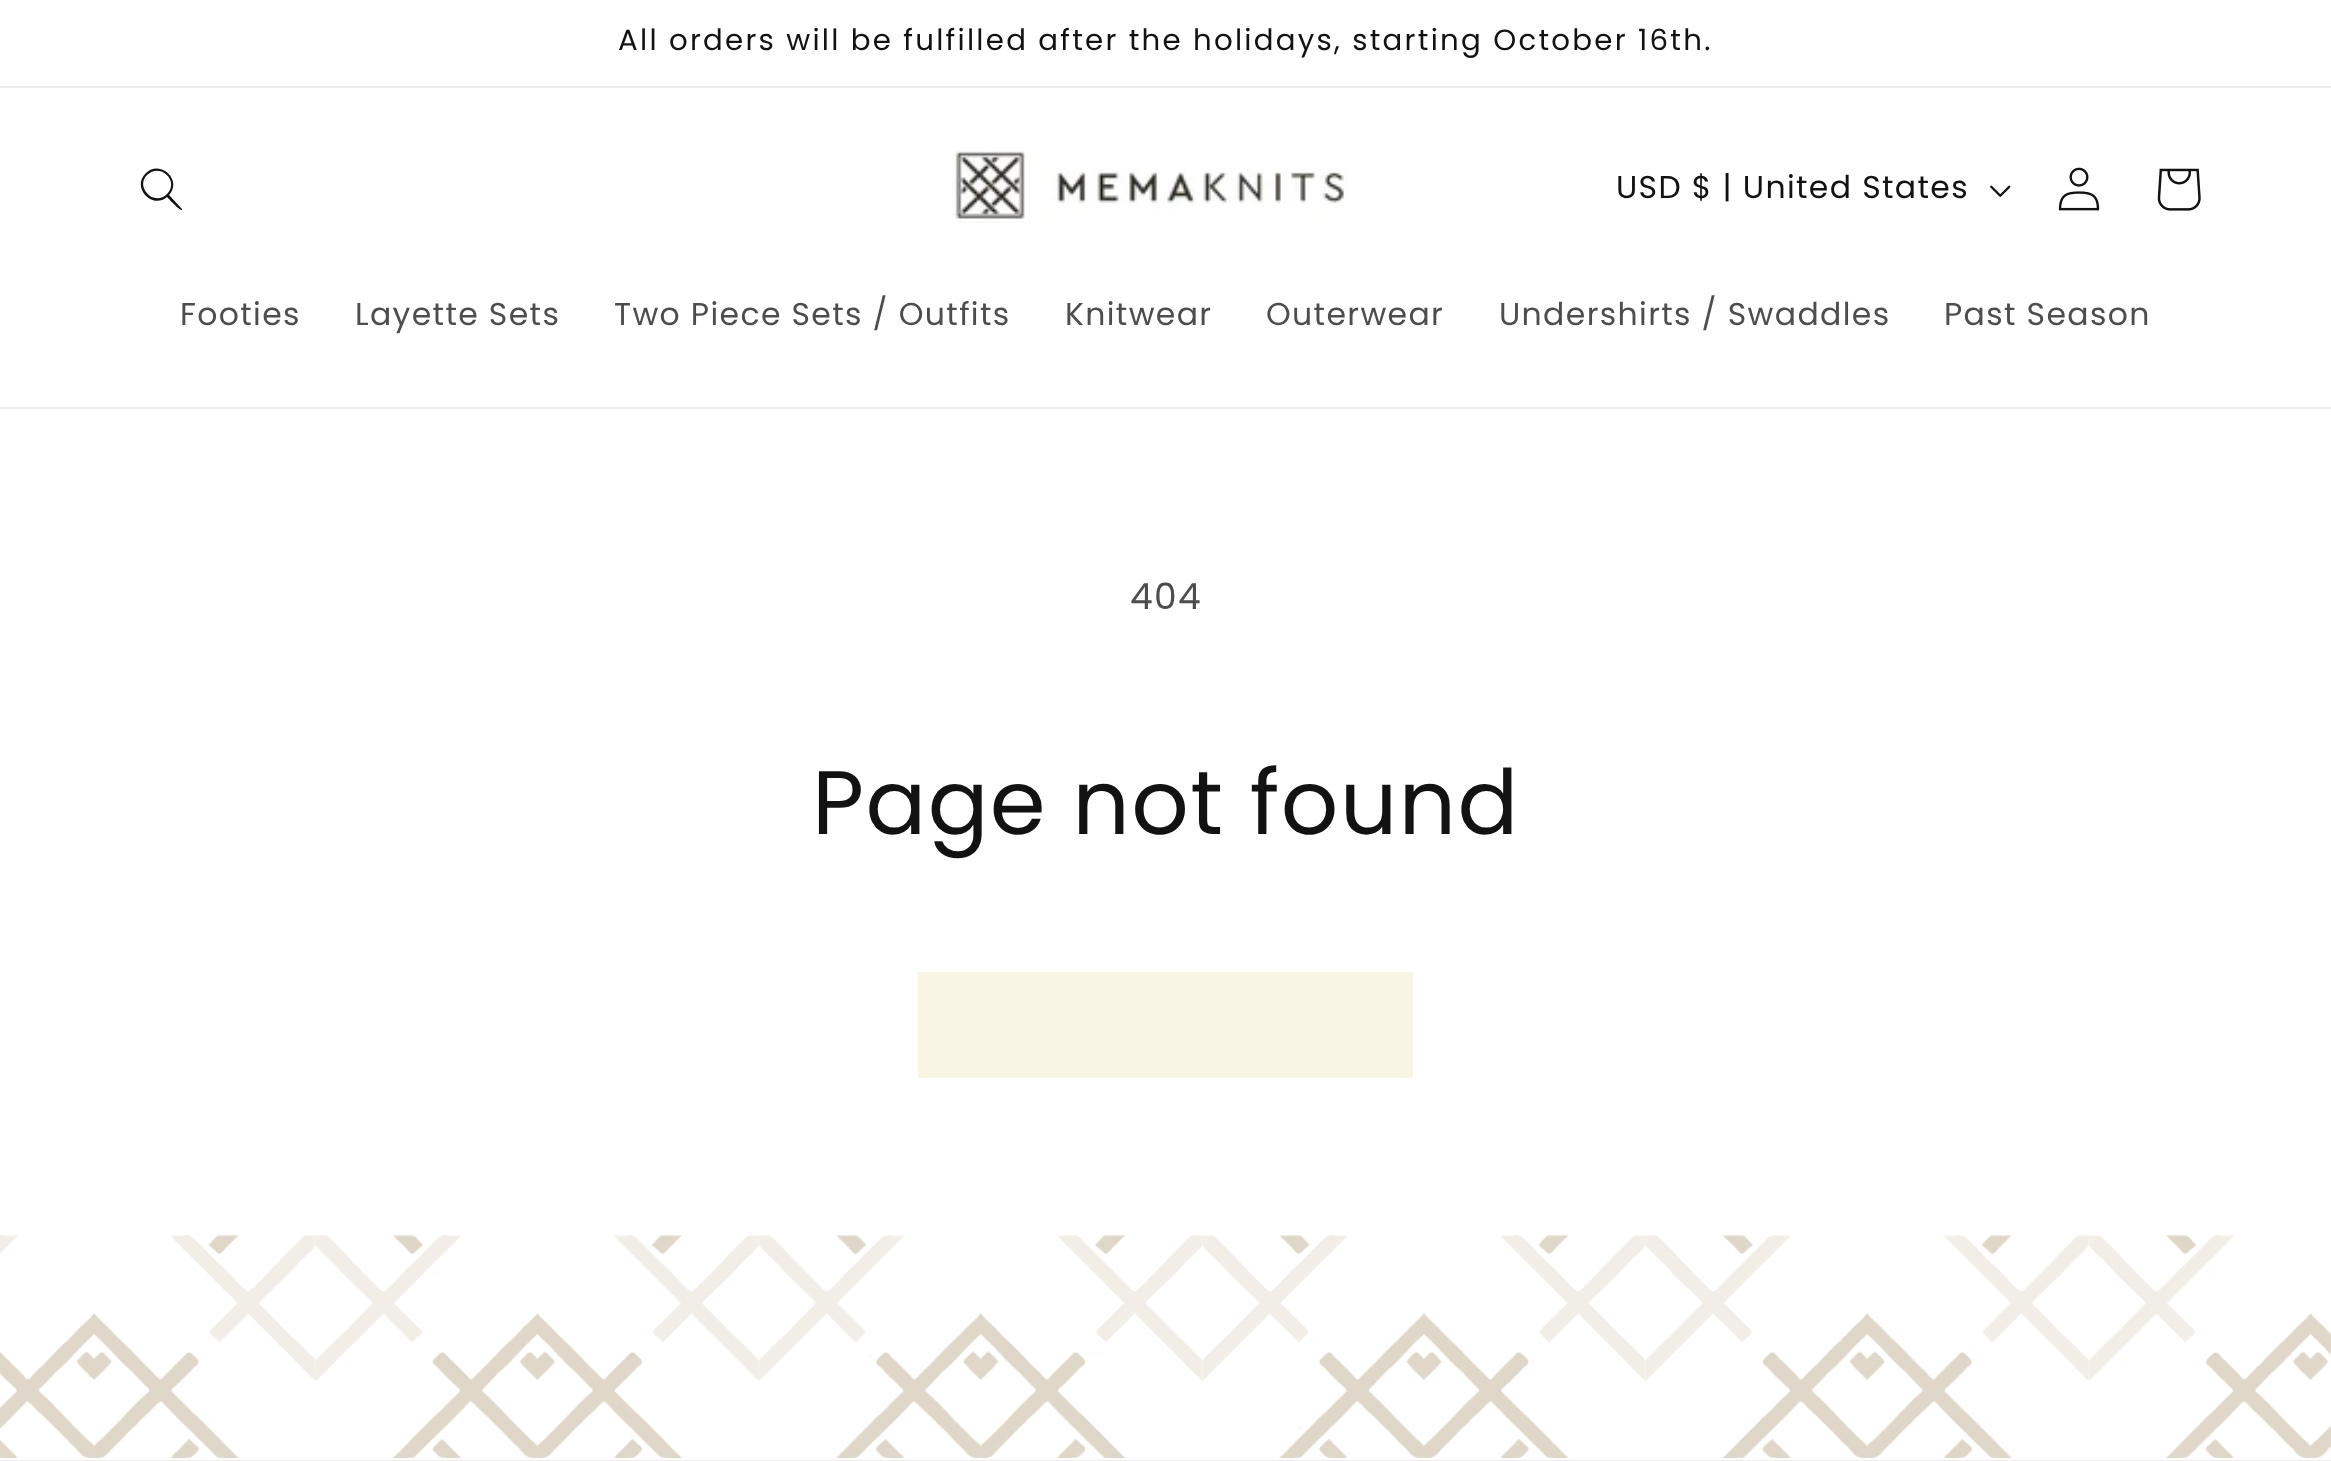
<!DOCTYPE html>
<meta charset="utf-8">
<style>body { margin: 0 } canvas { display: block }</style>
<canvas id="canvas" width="2331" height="1461"></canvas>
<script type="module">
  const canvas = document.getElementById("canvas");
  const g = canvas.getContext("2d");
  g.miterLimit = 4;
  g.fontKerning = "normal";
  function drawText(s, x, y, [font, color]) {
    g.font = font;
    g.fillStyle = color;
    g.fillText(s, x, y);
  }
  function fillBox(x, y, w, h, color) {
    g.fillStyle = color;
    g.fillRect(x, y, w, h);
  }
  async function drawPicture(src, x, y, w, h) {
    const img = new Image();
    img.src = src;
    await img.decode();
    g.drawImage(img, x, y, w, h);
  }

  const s1 = ["29.25px Poppins", "#121212"];
  const s2 = ["31.5px Poppins", "#121212"];
  const s3 = ["31.5px Poppins", "#4D4D4D"];
  const s4 = ["36px Poppins", "#4D4D4D"];
  const s5 = ["90px Poppins", "#121212"];

  fillBox(0, 0, 2331, 1461, "#FFFFFF");
  fillBox(0, 86, 2331, 2, "#ECECEC");
  g.letterSpacing = "2.25px";
  drawText("All orders will be fulfilled after the holidays, starting October 16th.", 618, 50, s1);
  fillBox(0, 407, 2331, 2, "#ECECEC");
  g.fillStyle = "#121212";
  g.beginPath();
  g.moveTo(167, 194);
  g.bezierCurveTo(154, 207, 135, 187, 147, 175);
  g.bezierCurveTo(160, 162, 180, 181, 167, 194);
  g.closePath();
  g.moveTo(167, 197);
  g.bezierCurveTo(152, 210, 131, 187, 146, 173);
  g.bezierCurveTo(160, 159, 183, 180, 169, 195);
  g.lineTo(182, 209);
  g.lineTo(182, 210);
  g.bezierCurveTo(180, 211, 169, 199, 167, 197);
  g.closePath();
  g.fill("evenodd");
  await drawPicture("pic1.png", 952, 150, 396, 73);
  g.letterSpacing = "1.35px";
  drawText("USD $ | United States", 1616, 198, s2);
  await drawPicture("pic2.png", 1990, 185, 21, 12);
  await drawPicture("pic3.png", 2058, 167, 42, 44);
  await drawPicture("pic4.png", 2157, 168, 44, 43);
  drawText("Footies", 180, 325, s3);
  drawText("Layette Sets", 355, 325, s3);
  drawText("Two Piece Sets / Outfits", 614, 325, s3);
  drawText("Knitwear", 1065, 325, s3);
  drawText("Outerwear", 1266, 325, s3);
  drawText("Undershirts / Swaddles", 1499, 325, s3);
  drawText("Past Season", 1944, 325, s3);
  drawText("404", 1130, 609, s4);
  drawText("Page not found", 812, 834, s5);
  fillBox(918, 972, 495, 106, "#F9F5E4");
  await drawPicture("pic5.png", 0, 1235, 2331, 224);
  fillBox(0, 1460, 2331, 1, "#ECECEC");
</script>
